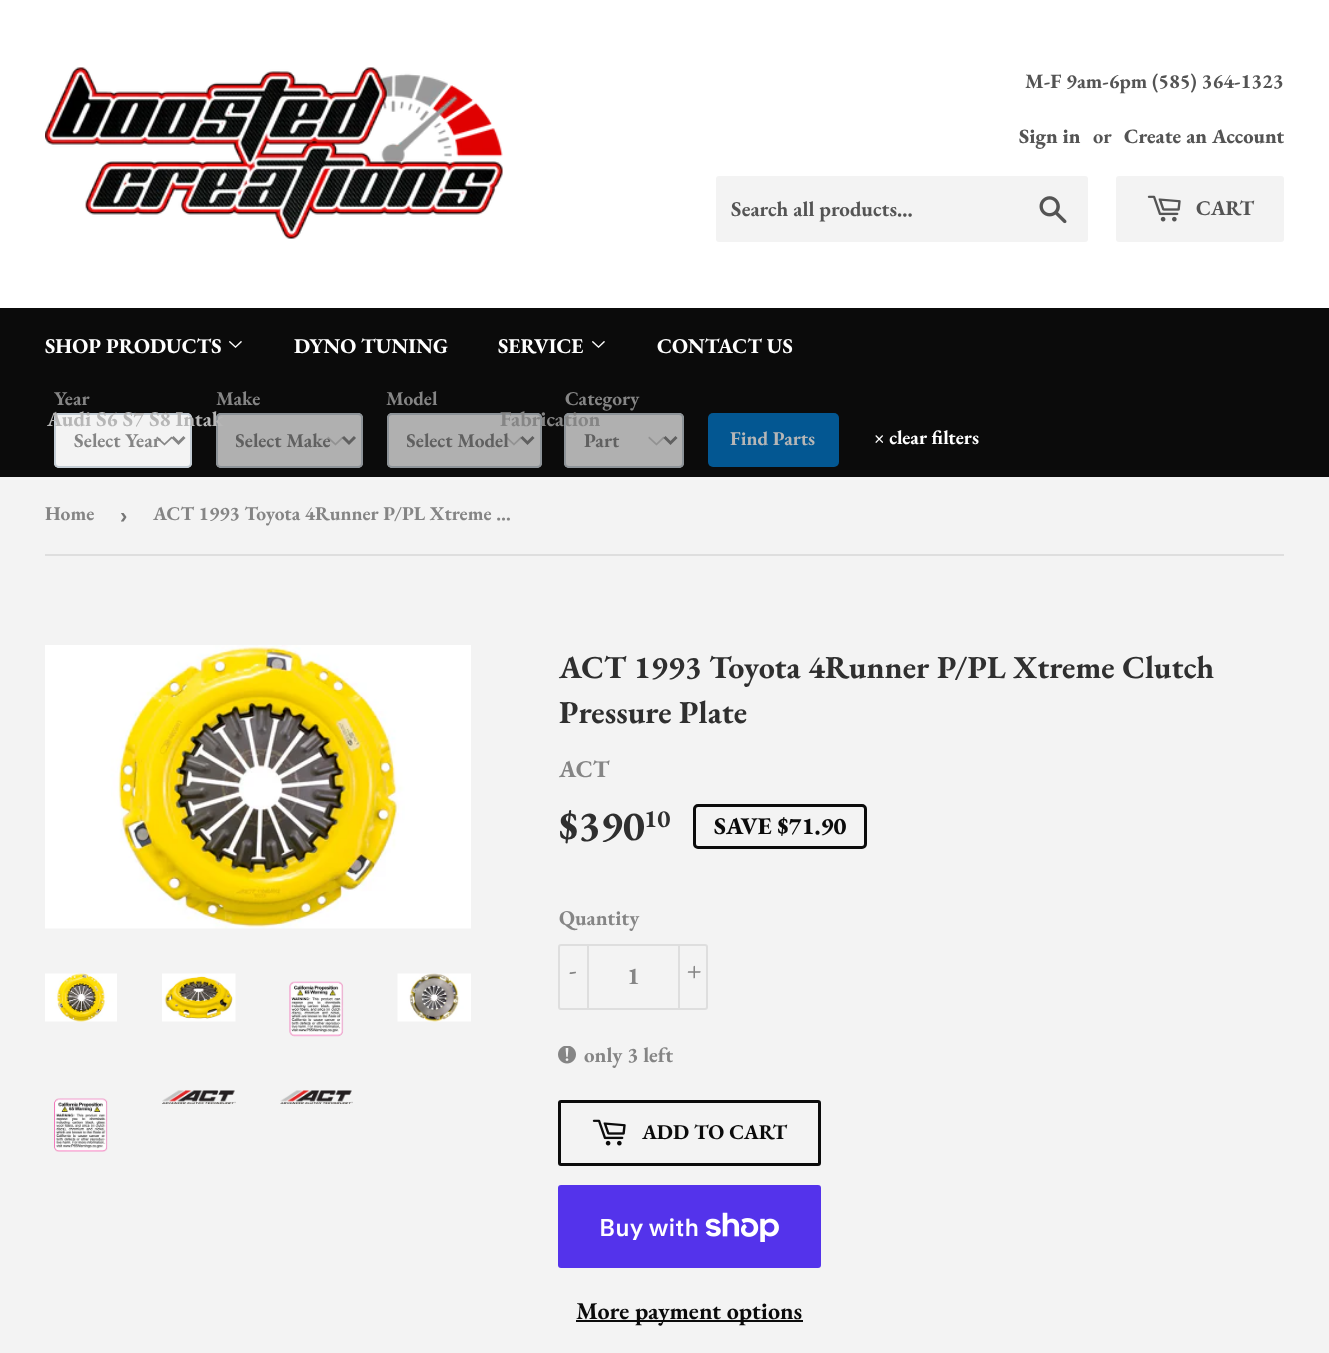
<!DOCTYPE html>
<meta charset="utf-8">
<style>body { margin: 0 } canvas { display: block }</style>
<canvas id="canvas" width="1329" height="1353"></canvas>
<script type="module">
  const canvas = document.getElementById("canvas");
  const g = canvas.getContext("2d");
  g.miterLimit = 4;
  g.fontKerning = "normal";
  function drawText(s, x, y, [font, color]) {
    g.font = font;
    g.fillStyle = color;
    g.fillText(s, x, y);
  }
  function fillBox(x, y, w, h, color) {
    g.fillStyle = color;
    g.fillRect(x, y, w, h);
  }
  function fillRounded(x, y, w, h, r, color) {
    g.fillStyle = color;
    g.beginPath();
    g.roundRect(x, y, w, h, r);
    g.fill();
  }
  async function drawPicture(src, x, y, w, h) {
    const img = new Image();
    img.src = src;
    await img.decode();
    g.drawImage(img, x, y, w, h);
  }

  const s1 = ["bold 20.4px EB Garamond", "#545454"];
  const s2 = ["800 20.4px EB Garamond", "#545454"];
  const s3 = ["bold 21px EB Garamond", "#545454"];
  const s4 = ["bold 21px EB Garamond", "#FFFFFF"];
  const s5 = ["bold 21px EB Garamond", "#B6B6B6"];
  const s6 = ["bold 21px EB Garamond", "#858585"];
  const s7 = ["bold 19.5px EB Garamond", "#858585"];
  const s8 = ["bold 19.5px EB Garamond", "#606060"];
  const s9 = ["bold 19.5px EB Garamond", "#B6B6B6"];
  const s10 = ["bold 19.5px EB Garamond", "#FFFFFF"];
  const s11 = ["bold 22px Liberation Sans", "#767676"];
  const s12 = ["bold 32px EB Garamond", "#2F2F2F"];
  const s13 = ["bold 24px EB Garamond", "#858585"];
  const s14 = ["bold 42px EB Garamond", "#2F2F2F"];
  const s15 = ["bold 25px EB Garamond", "#2F2F2F"];
  const s16 = ["800 24px EB Garamond", "#0B0B0B"];
  const s17 = ["bold 21px EB Garamond", "#0B0B0B"];
  const s18 = ["600 24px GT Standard", "#FFFFFF"];
  const s19 = ["bold 24px EB Garamond", "#0B0B0B"];

  fillBox(0, 0, 1329, 1353, "#F3F3F3");
  fillBox(0, 0, 1329, 308, "#FFFFFF");
  await drawPicture("pic1.png", 45, 67, 458, 172);
  drawText("M-F 9am-6pm (585) 364-1323", 1025, 88, s1);
  drawText("Sign in", 1019, 143, s2);
  drawText("or", 1093, 143, s1);
  drawText("Create an Account", 1124, 143, s2);
  fillRounded(716, 176, 372, 66, 3, "#F3F3F3");
  drawText("Search all products...", 731, 216, s3);
  await drawPicture("pic2.png", 1039, 196, 28, 28);
  fillRounded(1116, 176, 168, 66, 3, "#F3F3F3");
  await drawPicture("pic3.png", 1147, 195, 34, 27);
  drawText("CART", 1196, 215, s3);
  fillBox(0, 308, 1329, 169, "#0B0B0B");
  drawText("SHOP PRODUCTS", 45, 353, s4);
  await drawPicture("pic4.png", 229, 341, 13, 7);
  fillRounded(54, 413, 138, 55, 5, "#F3F3F3");
  await drawPicture("pic5.png", 156, 436, 17, 10);
  g.beginPath();
  g.roundRect(55, 414, 136, 53, 4);
  g.strokeStyle = "#C4CDD5";
  g.lineWidth = 2;
  g.stroke();
  fillRounded(216, 413, 147, 55, 5, "#B0B0B0");
  await drawPicture("pic6.png", 327, 436, 16, 10);
  g.beginPath();
  g.roundRect(217, 414, 145, 53, 4);
  g.strokeStyle = "#8D9398";
  g.stroke();
  drawText("Audi S6 S7 S8 Intak", 47, 426, s5);
  drawText("DYNO TUNING", 294, 353, s4);
  drawText("SERVICE", 498, 353, s4);
  await drawPicture("pic4.png", 592, 341, 13, 7);
  fillRounded(387, 413, 155, 55, 5, "#B0B0B0");
  await drawPicture("pic7.png", 506, 436, 16, 10);
  g.beginPath();
  g.roundRect(388, 414, 153, 53, 4);
  g.stroke();
  fillRounded(564, 413, 120, 55, 5, "#B0B0B0");
  await drawPicture("pic8.png", 648, 436, 17, 10);
  g.beginPath();
  g.roundRect(565, 414, 118, 53, 4);
  g.stroke();
  drawText("Fabrication", 500, 426, s6);
  drawText("CONTACT US", 657, 353, s4);
  drawText("Year", 54, 405, s7);
  g.beginPath();
  g.moveTo(172.5, 437);
  g.lineTo(178.5, 443);
  g.lineTo(184.5, 437);
  g.strokeStyle = "#858585";
  g.lineWidth = 3;
  g.stroke();
  drawText("Select Year", 74, 447, s7);
  drawText("Make", 216, 405, s7);
  g.beginPath();
  g.moveTo(343, 437);
  g.lineTo(349, 443);
  g.lineTo(355, 437);
  g.strokeStyle = "#606060";
  g.stroke();
  g.save();
  g.beginPath();
  g.rect(236, 426, 96, 29);
  g.clip();
  drawText("Select Make", 235, 447, s8);
  g.restore();
  drawText("Model", 386, 405, s7);
  g.beginPath();
  g.moveTo(521.5, 437);
  g.lineTo(527.5, 443);
  g.lineTo(533.5, 437);
  g.stroke();
  g.save();
  g.beginPath();
  g.rect(407, 426, 103, 29);
  g.clip();
  drawText("Select Model", 406, 447, s8);
  g.restore();
  drawText("Category", 565, 405, s7);
  g.beginPath();
  g.moveTo(664.5, 437);
  g.lineTo(670.5, 443);
  g.lineTo(676.5, 437);
  g.stroke();
  drawText("Part", 584, 447, s8);
  fillRounded(708, 413, 131, 54, 5, "#035792");
  drawText("Find Parts", 730, 445, s9);
  drawText("× clear filters", 874, 444, s10);
  fillBox(45, 554, 1239, 2, "#DEDEDE");
  drawText("Home", 45, 520, s7);
  drawText("›", 120, 523, s11);
  drawText("ACT 1993 Toyota 4Runner P/PL Xtreme …", 153, 520, s7);
  await drawPicture("pic9.png", 45, 645, 426, 284);
  await drawPicture("pic10.png", 45, 973, 72, 49);
  await drawPicture("pic11.png", 162, 973, 74, 49);
  await drawPicture("pic12.png", 289, 981, 55, 56);
  await drawPicture("pic13.png", 397, 973, 74, 49);
  await drawPicture("pic14.png", 54, 1098, 54, 54);
  await drawPicture("pic15.png", 162, 1090, 74, 14);
  await drawPicture("pic16.png", 280, 1090, 73, 14);
  drawText("ACT 1993 Toyota 4Runner P/PL Xtreme Clutch", 559, 678, s12);
  drawText("Pressure Plate", 559, 723, s12);
  drawText("ACT", 559, 777, s13);
  drawText("$390", 559, 840, s14);
  drawText("10", 644, 827, s15);
  g.beginPath();
  g.roundRect(694.5, 805.5, 171, 42, 3.5);
  g.strokeStyle = "#0B0B0B";
  g.stroke();
  drawText("SAVE $71.90", 714, 834, s16);
  drawText("Quantity", 559, 925, s6);
  g.beginPath();
  g.roundRect(559, 945, 148, 64, 2);
  g.strokeStyle = "#DEDEDE";
  g.lineWidth = 2;
  g.stroke();
  fillBox(587, 944, 2, 66, "#DEDEDE");
  drawText("-", 569, 978, s13);
  drawText("1", 627, 984, s13);
  fillBox(678, 944, 2, 66, "#DEDEDE");
  drawText("+", 687, 978, s13);
  await drawPicture("pic17.png", 558, 1046, 18, 18);
  drawText("only 3 left", 584, 1062, s6);
  g.beginPath();
  g.roundRect(559.5, 1101.5, 260, 63, 1.5);
  g.strokeStyle = "#0B0B0B";
  g.lineWidth = 3;
  g.stroke();
  await drawPicture("pic18.png", 592, 1119, 34, 27);
  drawText("ADD TO CART", 642, 1139, s17);
  fillRounded(558, 1185, 263, 83, 3, "#5433EB");
  drawText("Buy with", 599, 1236, s18);
  await drawPicture("pic19.png", 705, 1212, 74, 30);
  fillBox(576, 1320, 227, 2, "#0B0B0B");
  drawText("More payment options", 576, 1319, s19);
</script>
